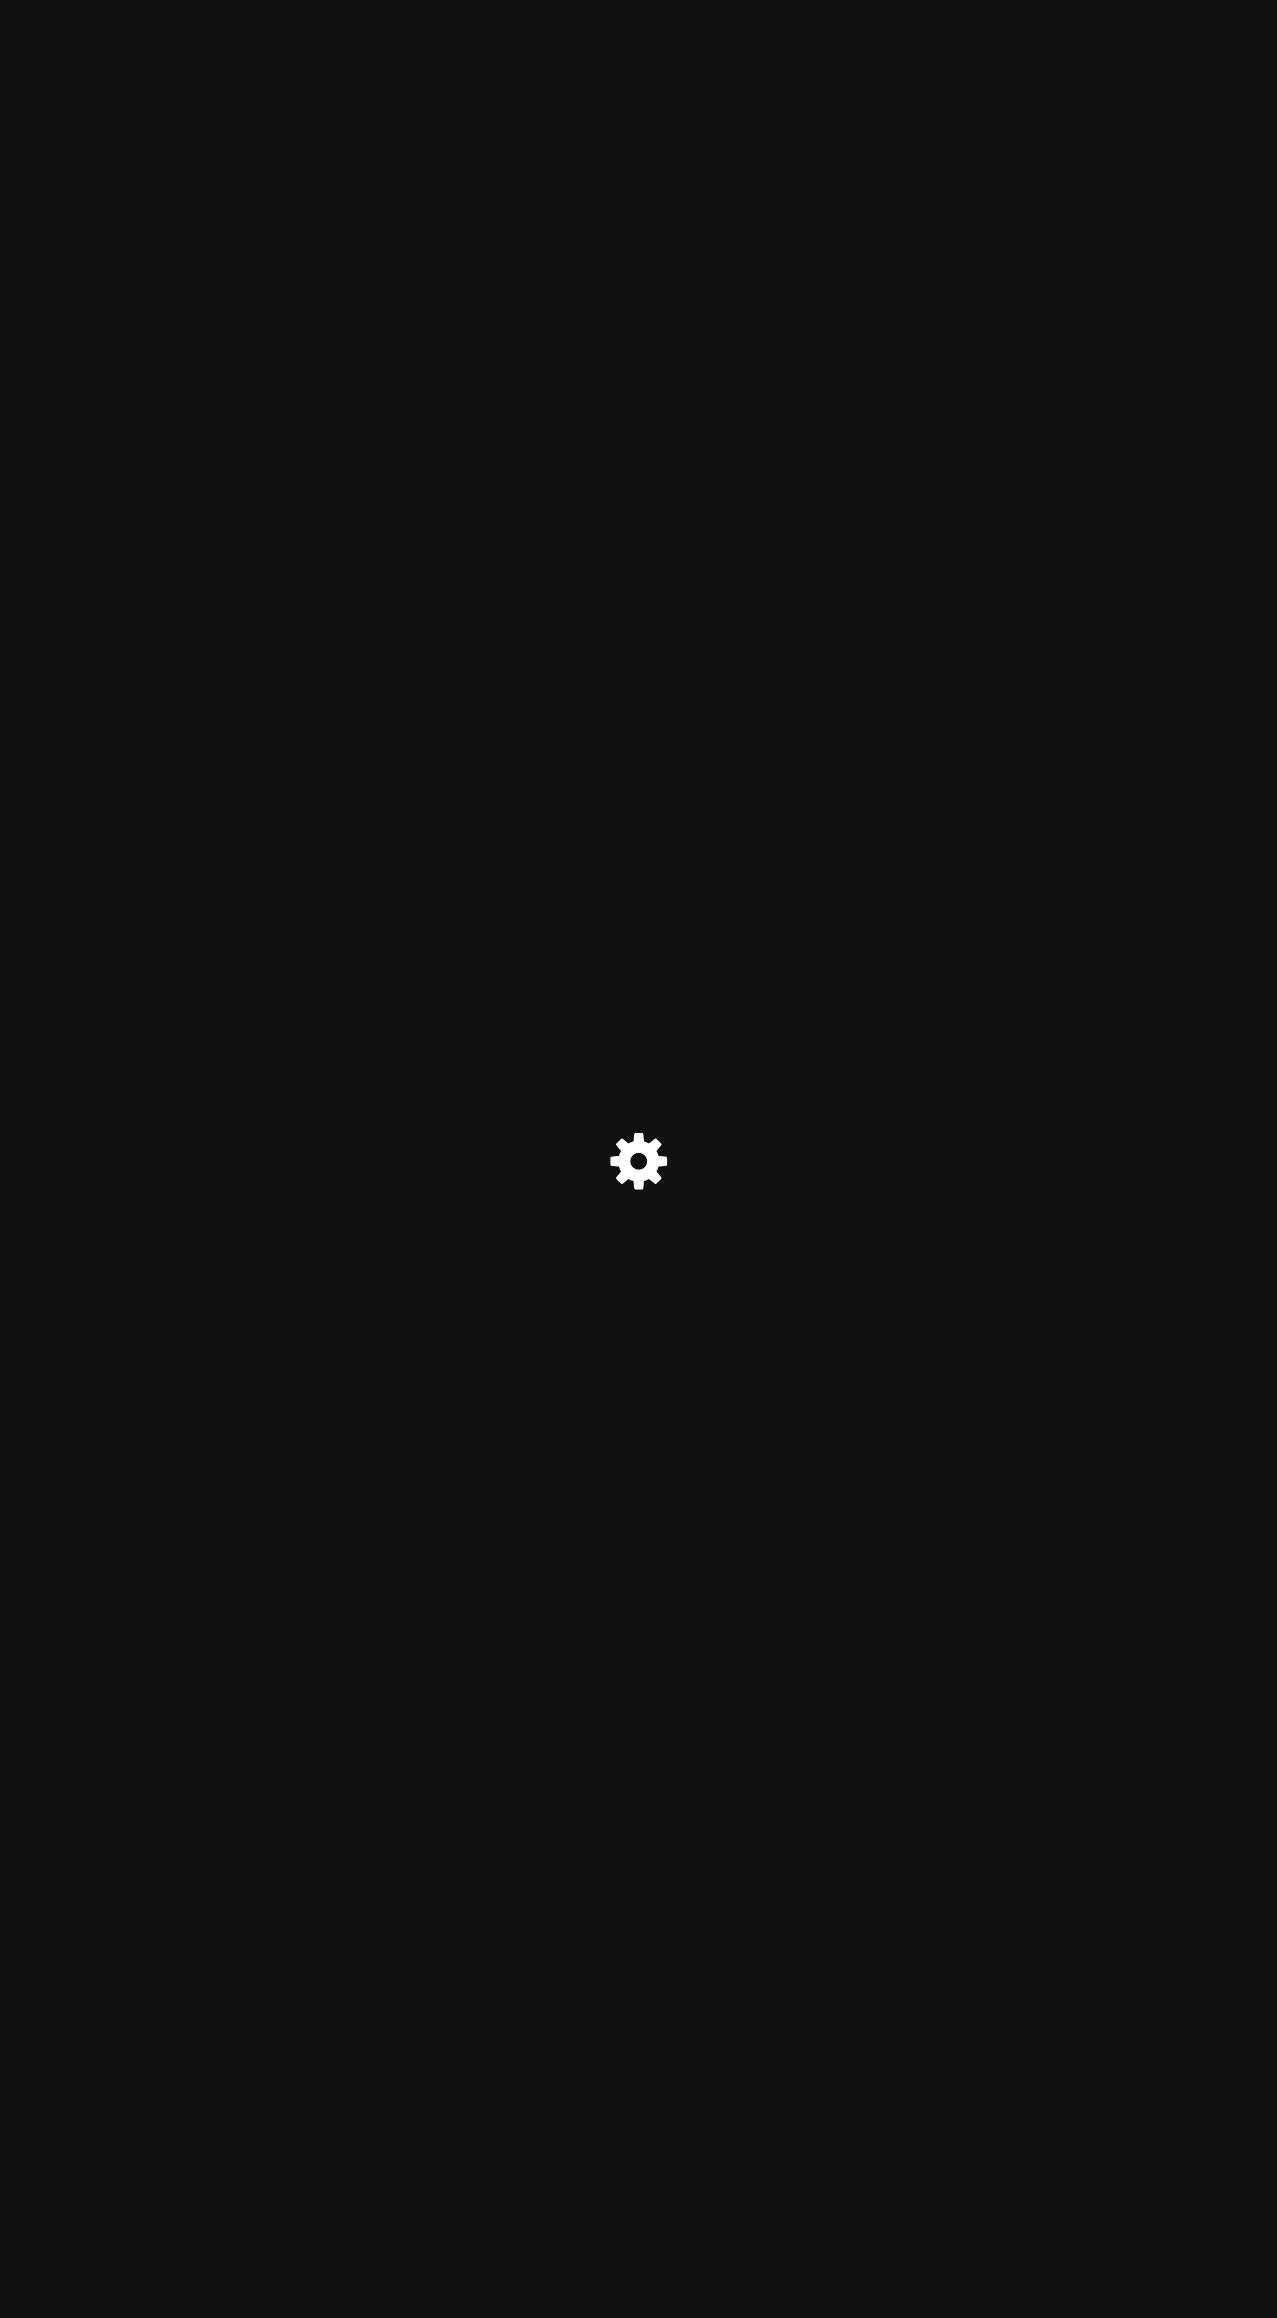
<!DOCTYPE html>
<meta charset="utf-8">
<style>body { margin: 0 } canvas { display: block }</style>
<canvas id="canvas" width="1277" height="2318"></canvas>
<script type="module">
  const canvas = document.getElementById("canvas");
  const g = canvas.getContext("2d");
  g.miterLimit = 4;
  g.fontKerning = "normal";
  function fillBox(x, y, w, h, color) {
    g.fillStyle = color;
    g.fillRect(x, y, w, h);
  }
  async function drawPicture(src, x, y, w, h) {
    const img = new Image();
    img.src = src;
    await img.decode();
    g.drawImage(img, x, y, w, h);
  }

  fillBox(0, 0, 1277, 2318, "#111111");
  await drawPicture("pic1.png", 610, 1132, 58, 58);
</script>
